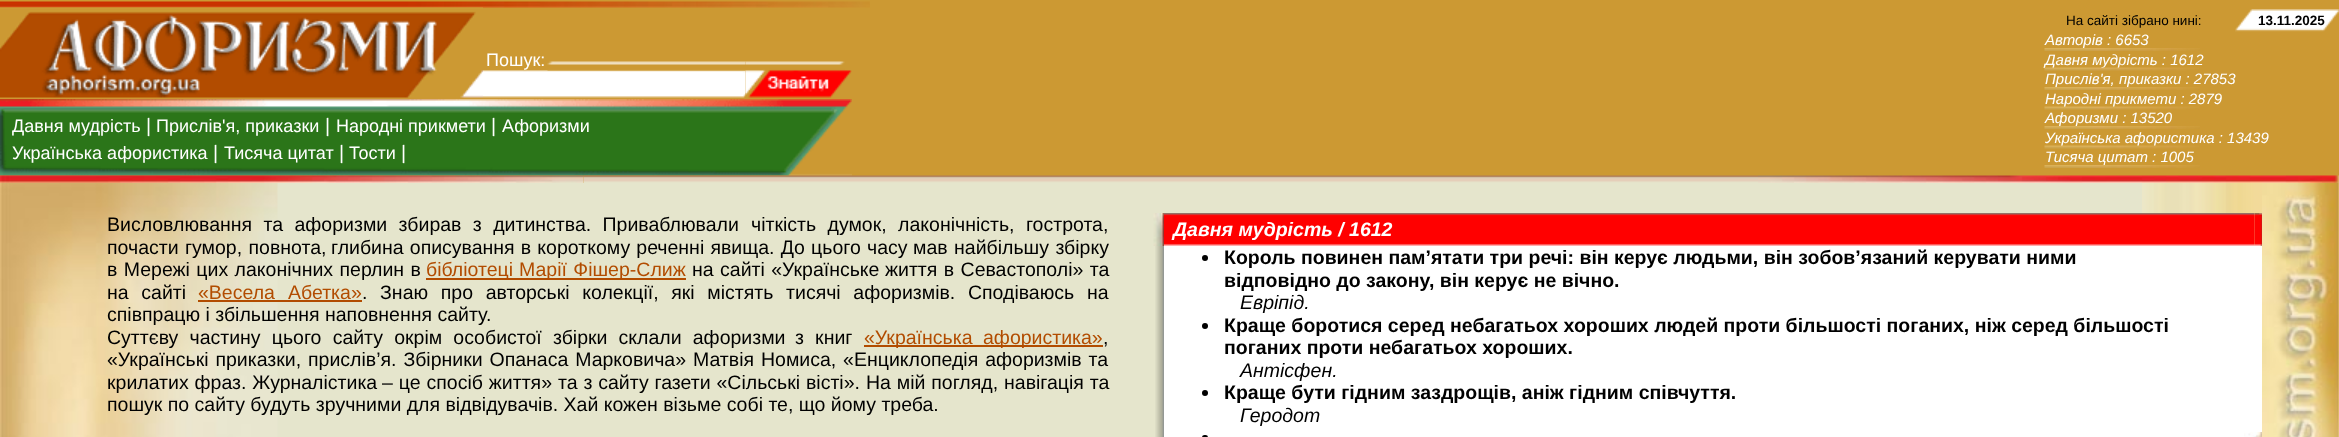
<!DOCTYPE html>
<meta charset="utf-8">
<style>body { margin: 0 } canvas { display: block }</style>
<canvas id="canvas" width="2339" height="437"></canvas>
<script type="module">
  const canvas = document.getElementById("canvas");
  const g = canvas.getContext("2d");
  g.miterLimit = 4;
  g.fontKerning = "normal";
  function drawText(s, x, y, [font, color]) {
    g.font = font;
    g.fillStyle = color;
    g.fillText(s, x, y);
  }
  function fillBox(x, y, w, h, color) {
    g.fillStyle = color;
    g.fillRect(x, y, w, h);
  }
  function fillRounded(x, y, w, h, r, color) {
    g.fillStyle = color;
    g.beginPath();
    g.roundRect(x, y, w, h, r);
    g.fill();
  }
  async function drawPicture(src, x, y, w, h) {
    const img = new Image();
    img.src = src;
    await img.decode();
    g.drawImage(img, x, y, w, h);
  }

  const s1 = ["18px Liberation Sans", "#FFFFFF"];
  const s2 = ["13.5px Liberation Sans", "#000000"];
  const s3 = ["bold 13.5px Liberation Sans", "#000000"];
  const s4 = ["italic 15px Liberation Sans", "#FFFFFF"];
  const s5 = ["19.5px Liberation Sans", "#FFFFFF"];
  const s6 = ["19.5px Liberation Sans", "#000000"];
  const s7 = ["19.5px Liberation Sans", "#B24C00"];
  const s8 = ["italic bold 19.5px Liberation Sans", "#FFFFFF"];
  const s9 = ["bold 19.5px Liberation Sans", "#000000"];
  const s10 = ["italic 19.5px Liberation Sans", "#000000"];

  fillBox(0, 0, 2339, 437, "#CC9933");
  await drawPicture("pic6.png", 0, 1, 870, 7);
  await drawPicture("pic1.png", 0, 7, 483, 91);
  drawText("Пошук:", 486, 66, s1);
  await drawPicture("pic4.png", 483, 70, 263, 28);
  await drawPicture("pic2.png", 547, 61, 199, 10);
  await drawPicture("pic3.png", 745, 61, 100, 10);
  fillBox(483, 72, 260, 24, "#FFFFFF");
  await drawPicture("pic5.png", 745, 70, 107, 28);
  await drawPicture("pic7.png", 2235, 9, 104, 23);
  drawText("На сайті зібрано нині:", 2066, 25, s2);
  drawText("13.11.2025", 2258, 25, s3);
  drawText("Авторів : 6653", 2045, 45, s4);
  await drawPicture("pic8.png", 2044, 48, 156, 3);
  drawText("Давня мудрість : 1612", 2045, 65, s4);
  await drawPicture("pic9.png", 2044, 67, 155, 4);
  drawText("Прислів'я, приказки : 27853", 2045, 84, s4);
  await drawPicture("pic8.png", 2044, 87, 156, 3);
  drawText("Народні прикмети : 2879", 2045, 104, s4);
  await drawPicture("pic10.png", 2044, 106, 155, 4);
  drawText("Афоризми : 13520", 2045, 123, s4);
  await drawPicture("pic8.png", 2044, 126, 156, 3);
  drawText("Українська афористика : 13439", 2045, 143, s4);
  await drawPicture("pic11.png", 2044, 145, 155, 4);
  drawText("Тисяча цитат : 1005", 2045, 162, s4);
  await drawPicture("pic8.png", 2044, 165, 156, 3);
  await drawPicture("pic12.png", 0, 99, 852, 77);
  drawText("Давня мудрість", 12, 132, s1);
  drawText("|", 146, 132, s5);
  drawText("Прислів'я, приказки", 156, 132, s1);
  drawText("|", 325, 132, s5);
  drawText("Народні прикмети", 336, 132, s1);
  drawText("|", 491, 132, s5);
  drawText("Афоризми", 502, 132, s1);
  drawText("Українська афористика", 12, 159, s1);
  drawText("|", 213, 159, s5);
  drawText("Тисяча цитат", 224, 159, s1);
  drawText("|", 339, 159, s5);
  drawText("Тости", 349, 159, s1);
  drawText("|", 401, 159, s5);
  await drawPicture("pic14.png", 583, 175, 1175, 8);
  await drawPicture("pic13.png", 0, 175, 584, 8);
  await drawPicture("pic15.png", 1758, 175, 581, 8);
  fillBox(277, 183, 1865, 254, "#E5E5CC");
  await drawPicture("pic16.png", 0, 183, 278, 254);
  g.wordSpacing = "6px";
  drawText("Висловлювання та афоризми збирав з дитинства. Приваблювали", 107, 231, s6);
  drawText("чіткість думок, лаконічність, гострота,", 751, 231, s6);
  g.wordSpacing = "1px";
  drawText("почасти гумор, повнота,", 107, 254, s6);
  g.wordSpacing = "0.75px";
  drawText("глибина описування в короткому реченні явища. До цього часу", 331, 254, s6);
  g.wordSpacing = "1px";
  drawText("мав найбільшу збірку", 913, 254, s6);
  drawText("в Мережі цих лаконічних перлин в", 107, 276, s6);
  fillBox(426, 278, 260, 2, "#B24C00");
  g.wordSpacing = "0px";
  drawText("бібліотеці", 426, 276, s7);
  g.wordSpacing = "1px";
  drawText("Марії Фішер-Слиж", 519, 276, s7);
  drawText("на сайті «Українське", 692, 276, s6);
  drawText("життя в Севастополі» та", 885, 276, s6);
  g.wordSpacing = "7.25px";
  drawText("на сайті", 107, 299, s6);
  g.wordSpacing = "0px";
  drawText("«Весела", 198, 299, s7);
  fillBox(198, 300, 164, 2, "#B24C00");
  drawText("Абетка»", 288, 299, s7);
  g.wordSpacing = "7.25px";
  drawText(". Знаю про авторські колекції, які містять тисячі афоризмів. Сподіваюсь на", 362, 299, s6);
  g.wordSpacing = "0px";
  drawText("співпрацю і збільшення наповнення сайту.", 107, 321, s6);
  g.wordSpacing = "5.75px";
  drawText("Суттєву частину цього сайту окрім особистої збірки склали афоризми", 107, 344, s6);
  drawText("з книг", 795, 344, s6);
  fillBox(864, 345, 239, 2, "#B24C00");
  g.wordSpacing = "0px";
  drawText("«Українська", 864, 344, s7);
  drawText("афористика»", 983, 344, s7);
  drawText(",", 1103, 344, s6);
  g.wordSpacing = "1.5px";
  drawText("«Українські приказки, прислів’я. Збірники Опанаса Марковича» Матвія Номиса, «Енциклопедія афоризмів та", 107, 366, s6);
  g.wordSpacing = "0.5px";
  drawText("крилатих фраз. Журналістика", 107, 389, s6);
  drawText("– це спосіб життя» та з сайту газети «Сільські", 382, 389, s6);
  drawText("вісті». На мій погляд, навігація та", 806, 389, s6);
  g.wordSpacing = "0px";
  drawText("пошук по сайту будуть зручними для відвідувачів. Хай кожен візьме собі те, що йому треба.", 107, 411, s6);
  await drawPicture("pic17.png", 2142, 183, 120, 63);
  await drawPicture("pic18.png", 1153, 213, 11, 33);
  await drawPicture("pic19.png", 1164, 213, 1091, 33);
  drawText("Давня мудрість / 1612", 1173, 236, s8);
  await drawPicture("pic20.png", 2254, 213, 8, 33);
  await drawPicture("pic21.png", 1155, 246, 9, 191);
  fillBox(1164, 246, 1098, 191, "#FFFFFF");
  g.fillStyle = "#000000";
  g.beginPath();
  g.arc(1205, 258, 3, 0, Math.PI * 2);
  g.fill();
  drawText("Король повинен пам’ятати три речі: він керує людьми, він зобов’язаний керувати ними", 1224, 264, s9);
  drawText("відповідно до закону, він керує не вічно.", 1224, 287, s9);
  drawText("Евріпід.", 1240, 309, s10);
  g.beginPath();
  g.arc(1205, 326, 3, 0, Math.PI * 2);
  g.fill();
  drawText("Краще боротися серед небагатьох хороших людей проти більшості поганих, ніж серед більшості", 1224, 332, s9);
  drawText("поганих проти небагатьох хороших.", 1224, 354, s9);
  drawText("Антісфен.", 1240, 377, s10);
  g.beginPath();
  g.arc(1205, 393, 3, 0, Math.PI * 2);
  g.fill();
  drawText("Краще бути гідним заздрощів, аніж гідним співчуття.", 1224, 399, s9);
  drawText("Геродот", 1240, 422, s10);
  fillRounded(1202, 435, 6, 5, 3, "#000000");
  await drawPicture("pic22.png", 2244, 432, 18, 5);
  await drawPicture("pic23.png", 2262, 183, 77, 254);
</script>
